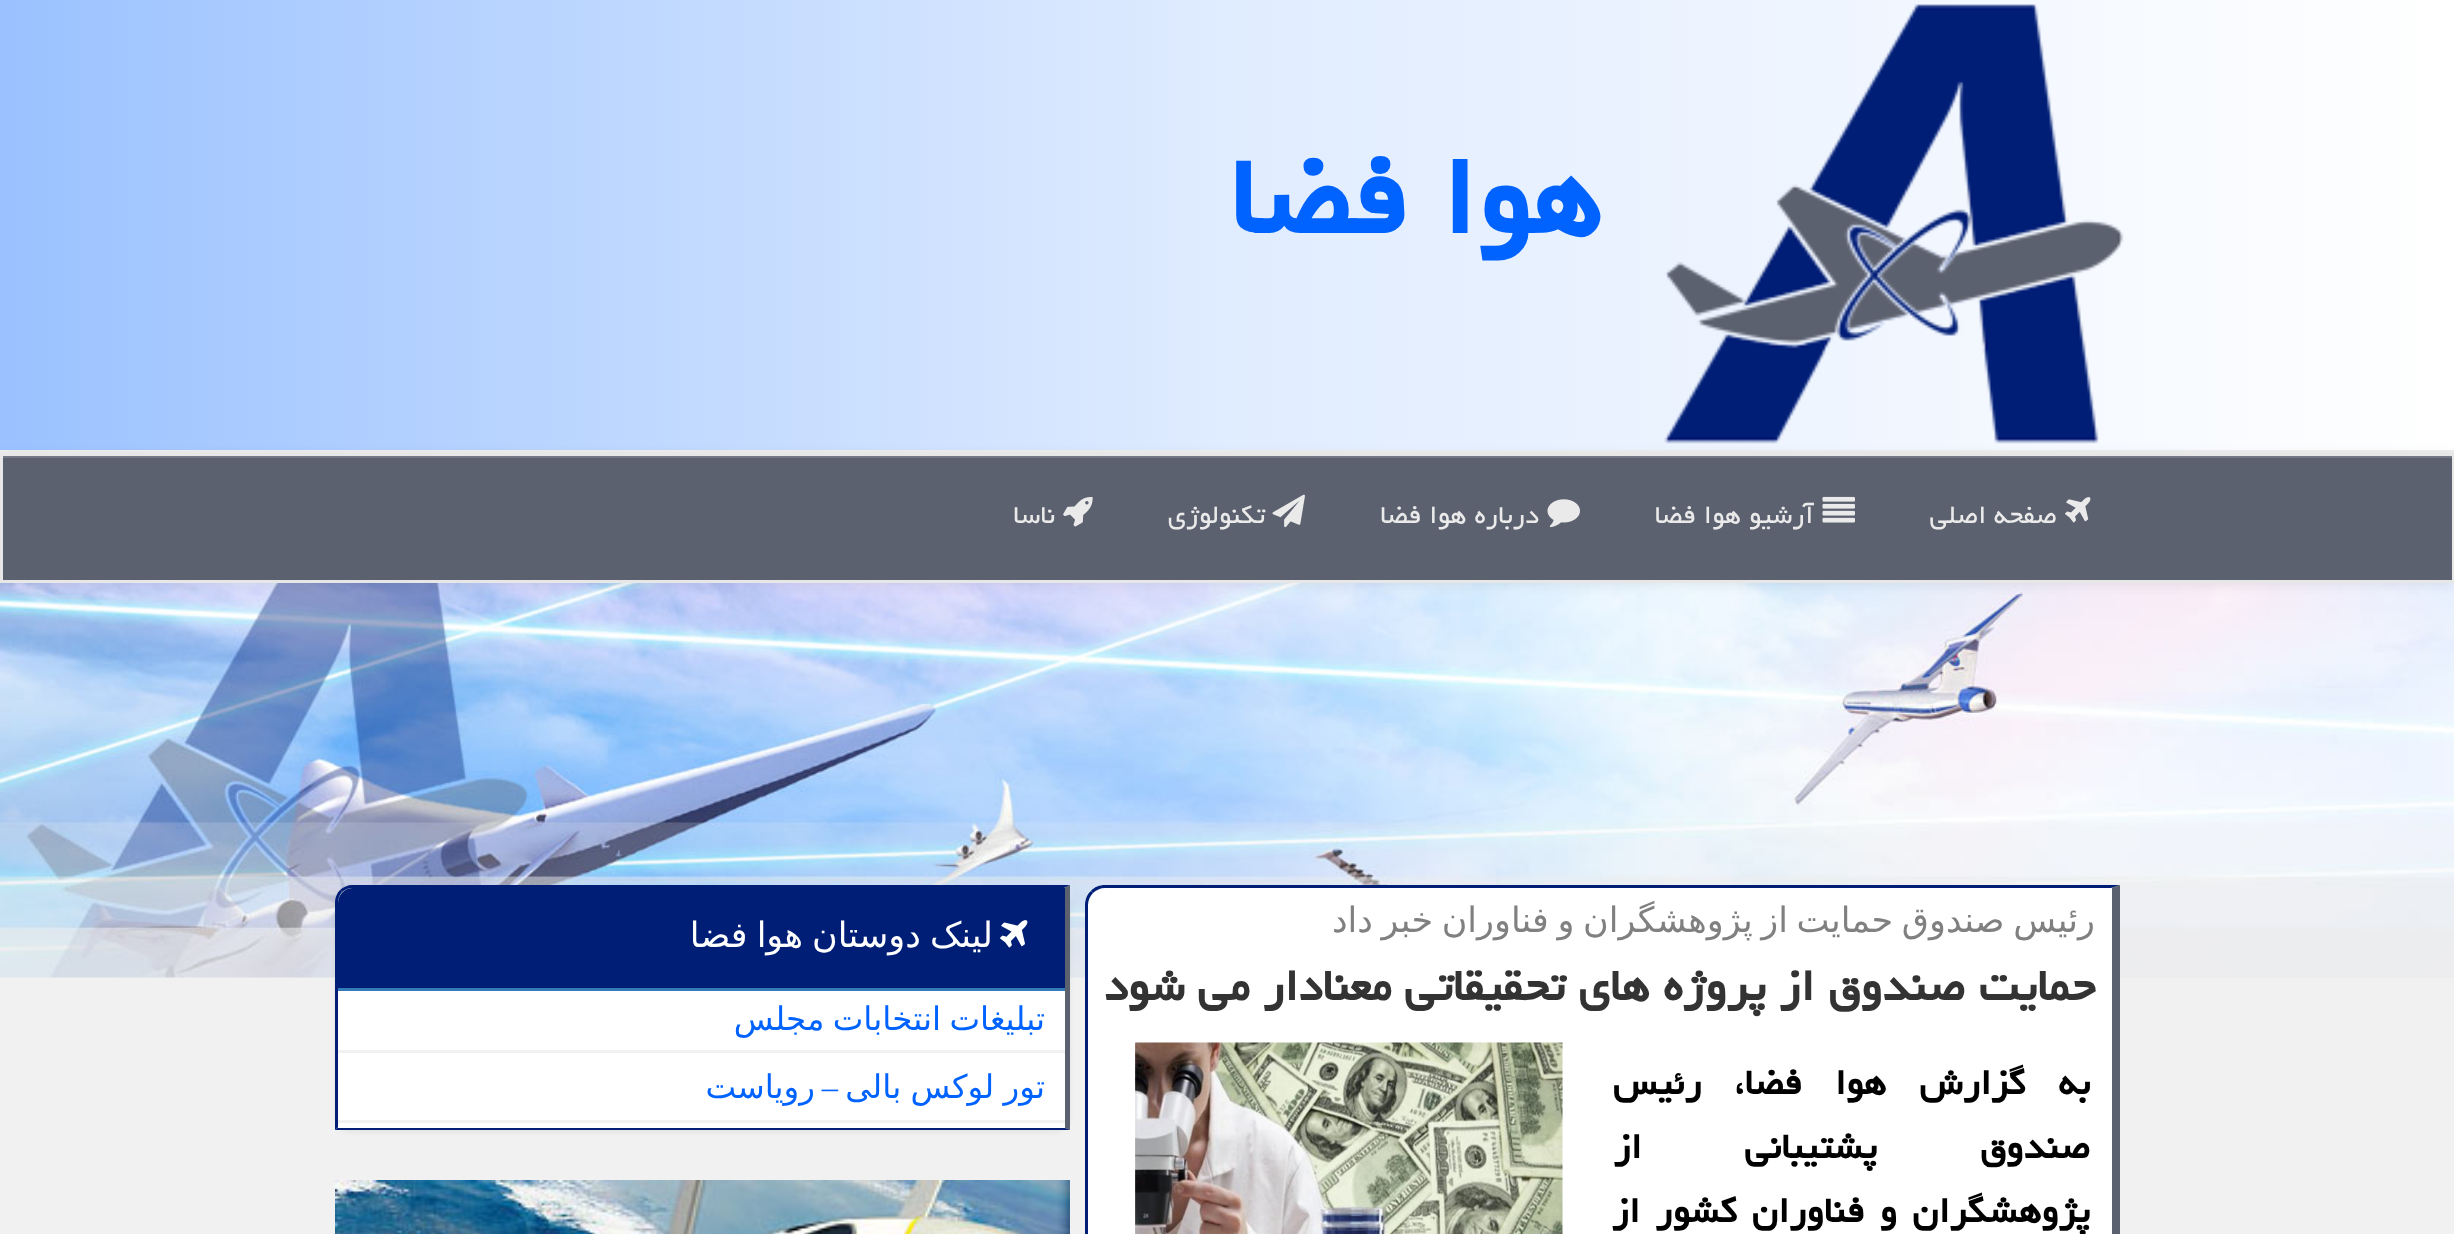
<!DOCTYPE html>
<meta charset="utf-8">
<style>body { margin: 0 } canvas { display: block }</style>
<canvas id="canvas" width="2454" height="1234"></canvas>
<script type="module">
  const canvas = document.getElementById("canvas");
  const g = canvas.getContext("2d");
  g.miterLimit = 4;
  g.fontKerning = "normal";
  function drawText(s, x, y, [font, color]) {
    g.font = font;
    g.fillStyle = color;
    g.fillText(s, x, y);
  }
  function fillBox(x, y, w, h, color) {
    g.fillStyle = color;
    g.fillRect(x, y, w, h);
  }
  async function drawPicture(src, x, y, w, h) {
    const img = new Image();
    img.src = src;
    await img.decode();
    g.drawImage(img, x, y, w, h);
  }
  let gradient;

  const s1 = ["bold 140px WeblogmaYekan", "#0063FF"];
  const s2 = ["32.5px WeblogmaYekan", "#EAEAEA"];
  const s3 = ["35px DejaVu Sans", "#808080"];
  const s4 = ["bold 56px WeblogmaYekan", "#333333"];
  const s5 = ["bold 45px WeblogmaYekan", "#000000"];
  const s6 = ["35px DejaVu Sans", "#FFFFFF"];
  const s7 = ["32.5px DejaVu Sans", "#0063FF"];
  const s8 = ["32.5px Liberation Serif", "#0063FF"];

  fillBox(0, 0, 2454, 1234, "#F1F1F1");
  gradient = g.createLinearGradient(0, 225, 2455, 225);
  gradient.addColorStop(0, "#9BC2FF");
  gradient.addColorStop(0.5, "#E0ECFF");
  gradient.addColorStop(1, "#FFFFFF");
  g.fillStyle = gradient;
  g.fillRect(0, 0, 2454, 450);
  fillBox(0, 450, 2454, 3, "#EEEEEE");
  await drawPicture("pic1.png", 1664, 4, 460, 440);
  g.direction = "rtl";
  drawText("هوا فضا", 1601, 233, s1);
  await drawPicture("pic7.png", 0, 583, 2454, 395);
  g.fillStyle = "rgba(0, 0, 0, 0.07)";
  g.filter = "blur(6px)";
  g.beginPath();
  g.rect(0, 455, 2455, 130);
  g.fill();
  g.filter = "none";
  fillBox(3, 458, 2449, 122, "#5C616F");
  fillBox(3, 456, 2450, 2, "#747985");
  g.strokeStyle = "#E7E7E7";
  g.lineWidth = 3;
  g.strokeRect(1.5, 454.5, 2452, 127);
  await drawPicture("pic2.png", 2065, 497, 26, 26);
  drawText("صفحه اصلی", 2057, 523, s2);
  await drawPicture("pic3.png", 1822, 496, 33, 27);
  drawText("آرشیو هوا فضا", 1814, 523, s2);
  await drawPicture("pic4.png", 1547, 499, 33, 29);
  drawText("درباره هوا فضا", 1539, 523, s2);
  await drawPicture("pic5.png", 1272, 494, 33, 34);
  drawText("تکنولوژی", 1265, 523, s2);
  await drawPicture("pic6.png", 1063, 497, 30, 30);
  drawText("ناسا", 1055, 523, s2);
  g.fillStyle = "#FFFFFF";
  g.beginPath();
  g.moveTo(1106, 888);
  g.lineTo(2113, 888);
  g.lineTo(2113, 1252);
  g.lineTo(1088, 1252);
  g.lineTo(1088, 906);
  g.bezierCurveTo(1088, 896, 1096, 888, 1106, 888);
  g.closePath();
  g.fill();
  g.fillStyle = "#001E76";
  g.beginPath();
  g.moveTo(1105, 885);
  g.bezierCurveTo(1100, 885, 1094, 887, 1091, 891);
  g.lineTo(1093, 893);
  g.bezierCurveTo(1096, 890, 1100, 888, 1105, 888);
  g.lineTo(2111, 888);
  g.lineTo(2120, 885);
  g.closePath();
  g.fill();
  g.fillStyle = "#5C616F";
  g.beginPath();
  g.moveTo(2120, 885);
  g.lineTo(2111, 888);
  g.lineTo(2112, 888);
  g.lineTo(2112, 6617);
  g.lineTo(2120, 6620);
  g.closePath();
  g.fill();
  g.fillStyle = "#001E76";
  g.beginPath();
  g.moveTo(1085, 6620);
  g.lineTo(1088, 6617);
  g.lineTo(1088, 905);
  g.bezierCurveTo(1088, 900, 1090, 896, 1093, 893);
  g.lineTo(1091, 891);
  g.bezierCurveTo(1087, 894, 1085, 900, 1085, 905);
  g.closePath();
  g.fill();
  g.wordSpacing = "-2.5px";
  drawText("رئیس صندوق حمایت از پژوهشگران و فناوران خبر داد", 2095, 932, s3);
  g.wordSpacing = "0px";
  drawText("حمایت صندوق از پروژه های تحقیقاتی معنادار می شود", 2095, 1000, s4);
  g.wordSpacing = "22px";
  drawText("به گزارش هوا فضا، رئیس", 2090, 1094, s5);
  g.wordSpacing = "92px";
  drawText("صندوق پشتیبانی از", 2090, 1158, s5);
  g.wordSpacing = "4.5px";
  drawText("پژوهشگران و فناوران کشور از", 2090, 1222, s5);
  await drawPicture("pic8.png", 1135, 1042, 428, 192);
  g.fillStyle = "rgba(0, 0, 0, 0.05)";
  g.filter = "blur(2.5px)";
  g.beginPath();
  g.roundRect(335, 888, 735, 245, 18);
  g.fill();
  g.filter = "none";
  g.fillStyle = "#FFFFFF";
  g.beginPath();
  g.roundRect(338, 888, 727, 240, [15, 0, 0, 0]);
  g.fill();
  g.fillStyle = "#001E76";
  g.beginPath();
  g.moveTo(352, 885);
  g.bezierCurveTo(348, 885, 343, 887, 340, 890);
  g.lineTo(342, 892);
  g.bezierCurveTo(344, 890, 348, 888, 352, 888);
  g.lineTo(1064, 888);
  g.lineTo(1070, 885);
  g.closePath();
  g.fill();
  g.fillStyle = "#5C616F";
  g.beginPath();
  g.moveTo(1070, 885);
  g.lineTo(1064, 888);
  g.lineTo(1065, 888);
  g.lineTo(1065, 1128);
  g.lineTo(1070, 1130);
  g.closePath();
  g.fill();
  g.fillStyle = "#001E76";
  g.beginPath();
  g.moveTo(1070, 1130);
  g.lineTo(1065, 1128);
  g.lineTo(338, 1128);
  g.lineTo(338, 1127);
  g.lineTo(335, 1130);
  g.closePath();
  g.fill();
  g.beginPath();
  g.moveTo(335, 1130);
  g.lineTo(338, 1127);
  g.lineTo(338, 902);
  g.bezierCurveTo(338, 898, 340, 894, 342, 892);
  g.lineTo(340, 890);
  g.bezierCurveTo(337, 893, 335, 898, 335, 902);
  g.closePath();
  g.fill();
  g.beginPath();
  g.roundRect(338, 888, 727, 102, [15, 0, 0, 0]);
  g.fill();
  fillBox(338, 988, 727, 3, "#337AB7");
  await drawPicture("pic9.png", 1000, 920, 28, 28);
  g.wordSpacing = "-2px";
  drawText("لینک دوستان هوا فضا", 993, 947, s6);
  fillBox(338, 1050, 727, 3, "#F1F1F1");
  drawText("تبلیغات انتخابات مجلس", 1045, 1030, s7);
  fillBox(338, 1120, 727, 3, "#F1F1F1");
  g.wordSpacing = "-1px";
  drawText("تور لوکس بالی", 1045, 1098, s7);
  g.wordSpacing = "0px";
  drawText("–", 838, 1098, s8);
  drawText("رویاست", 815, 1098, s7);
  await drawPicture("pic10.png", 335, 1180, 735, 54);
</script>
